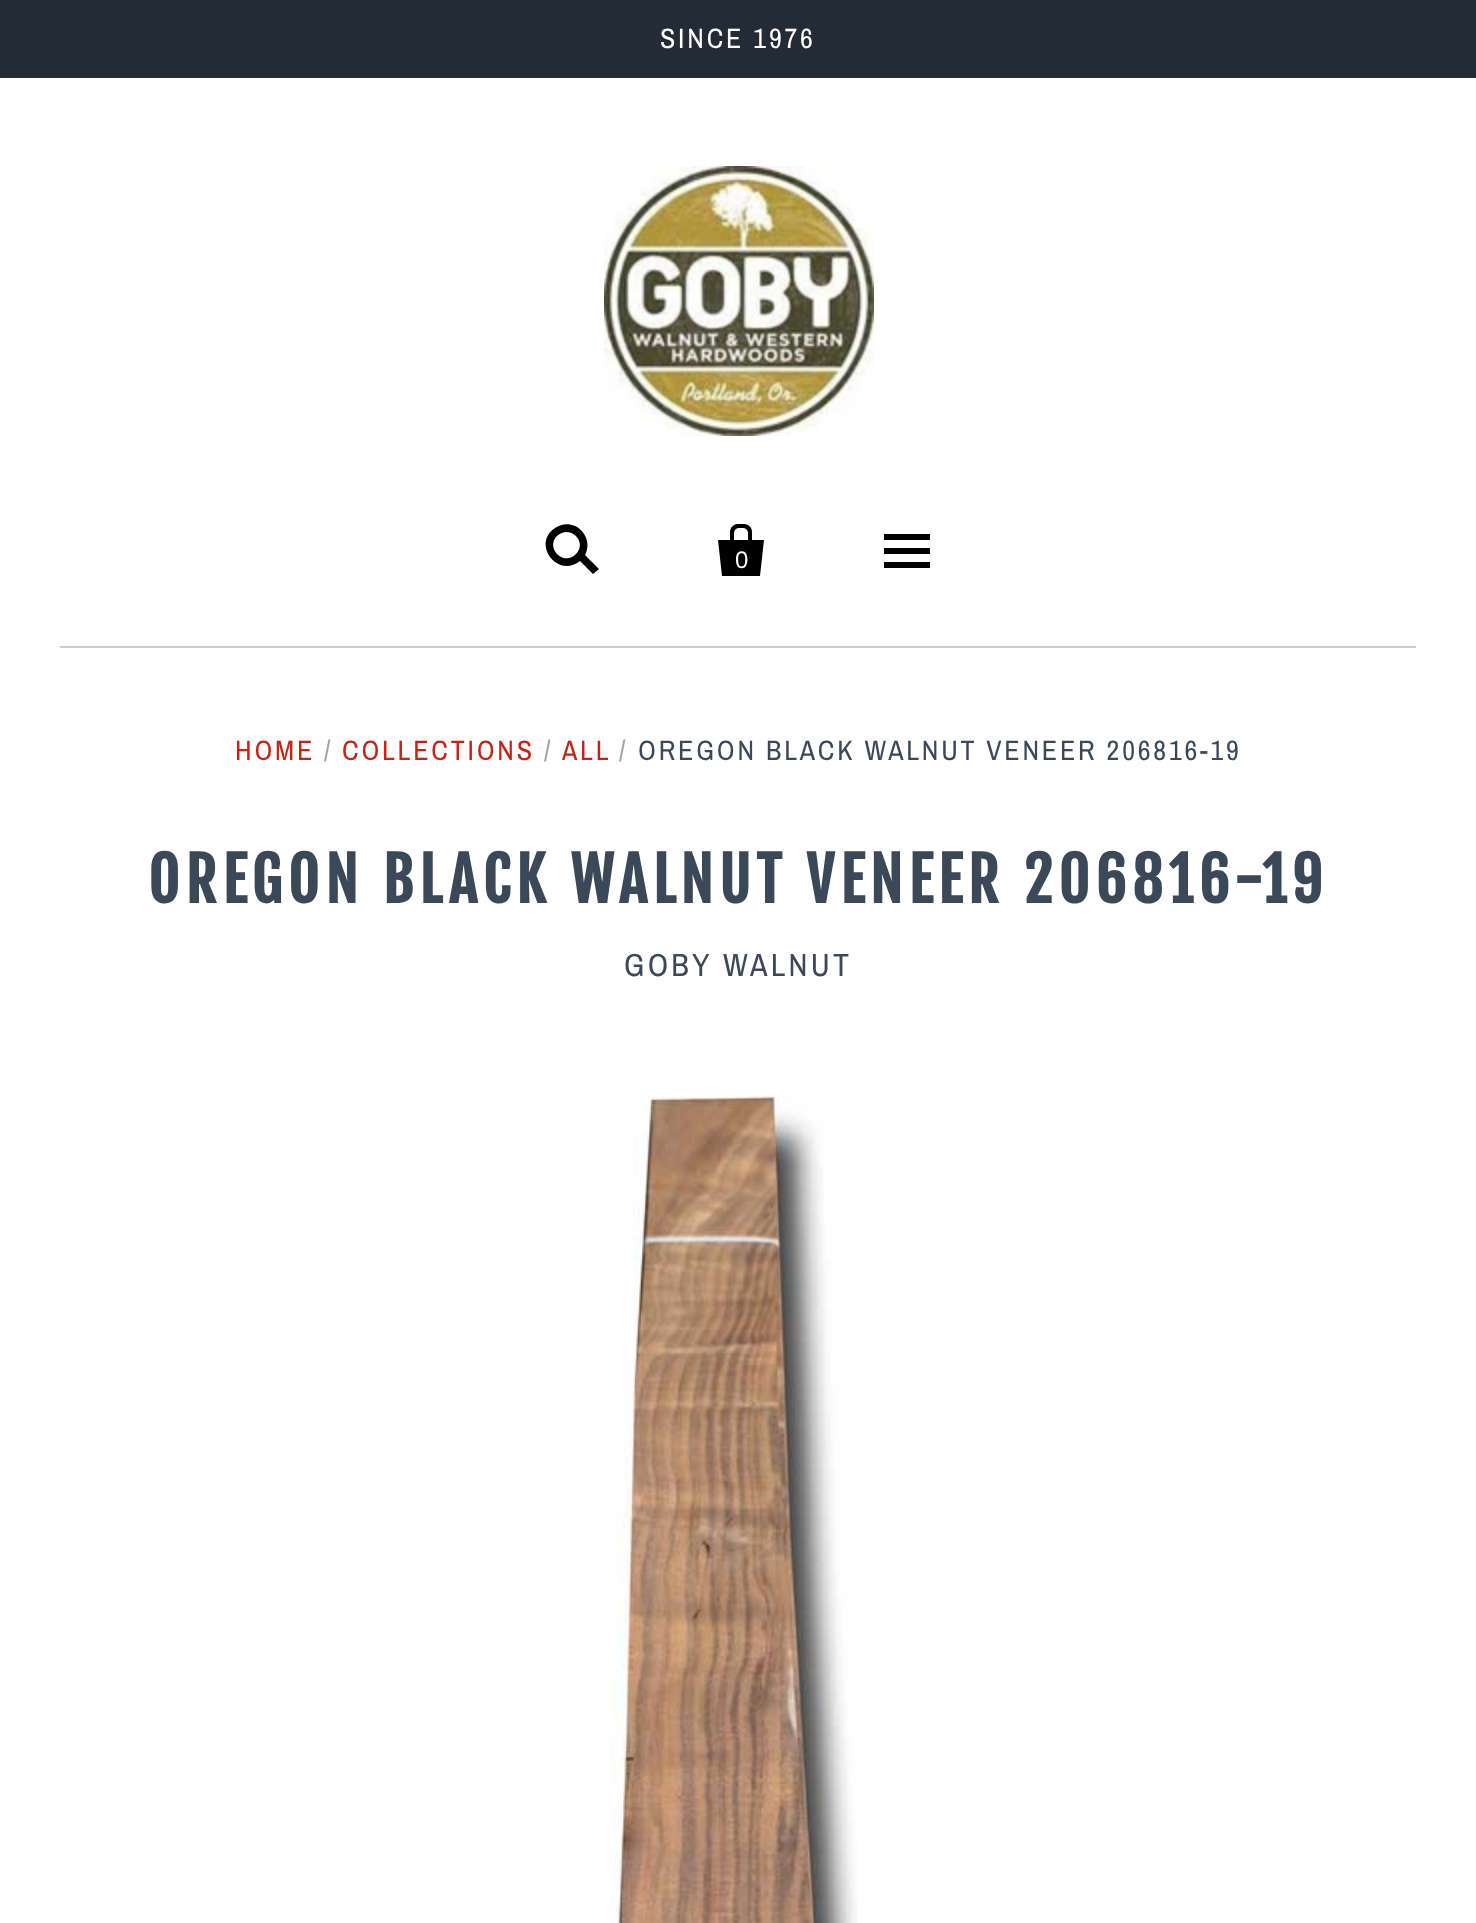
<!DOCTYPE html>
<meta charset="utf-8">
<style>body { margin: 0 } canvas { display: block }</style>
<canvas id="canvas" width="1476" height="1923"></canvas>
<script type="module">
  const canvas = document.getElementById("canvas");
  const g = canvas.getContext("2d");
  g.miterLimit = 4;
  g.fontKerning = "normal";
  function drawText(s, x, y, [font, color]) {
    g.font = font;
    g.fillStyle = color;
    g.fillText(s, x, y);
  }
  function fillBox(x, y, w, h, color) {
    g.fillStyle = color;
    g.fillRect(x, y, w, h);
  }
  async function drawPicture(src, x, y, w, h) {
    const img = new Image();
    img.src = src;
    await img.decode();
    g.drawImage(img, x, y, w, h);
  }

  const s1 = ["28px Archivo Narrow", "#FFFFFF"];
  const s2 = ["24px Liberation Sans", "#FFFFFF"];
  const s3 = ["28px Archivo Narrow", "#C12515"];
  const s4 = ["28px Archivo Narrow", "#9DA3AB"];
  const s5 = ["28px Archivo Narrow", "#3B4858"];
  const s6 = ["bold 60px Fjalla One", "#3B4858"];
  const s7 = ["32px Archivo Narrow", "#3B4858"];

  fillBox(0, 0, 1476, 1923, "#FFFFFF");
  fillBox(0, 0, 1476, 78, "#232B36");
  g.letterSpacing = "2.8px";
  drawText("SINCE 1976", 660, 48, s1);
  fillBox(60, 646, 1356, 2, "#CCCCCC");
  await drawPicture("pic1.png", 604, 166, 270, 270);
  g.fillStyle = "#000000";
  g.beginPath();
  g.moveTo(585, 555);
  g.bezierCurveTo(591, 545, 586, 531, 575, 526);
  g.bezierCurveTo(568, 523, 561, 524, 555, 528);
  g.bezierCurveTo(531, 544, 558, 579, 580, 561);
  g.lineTo(593, 574);
  g.lineTo(599, 569);
  g.closePath();
  g.moveTo(576, 554);
  g.bezierCurveTo(564, 567, 545, 548, 557, 536);
  g.bezierCurveTo(570, 524, 588, 542, 576, 554);
  g.closePath();
  g.fill();
  await drawPicture("pic2.png", 718, 524, 46, 52);
  g.letterSpacing = "0px";
  drawText("0", 735, 568, s2);
  fillBox(884, 548, 46, 6, "#000000");
  fillBox(884, 534, 46, 6, "#000000");
  fillBox(884, 562, 46, 6, "#000000");
  g.letterSpacing = "2.8px";
  drawText("HOME", 235, 760, s3);
  drawText("/", 324, 760, s4);
  drawText("COLLECTIONS", 342, 760, s3);
  drawText("/", 544, 760, s4);
  drawText("ALL", 562, 760, s3);
  drawText("/", 619, 760, s4);
  drawText("OREGON BLACK WALNUT VENEER 206816-19", 638, 760, s5);
  g.letterSpacing = "6px";
  drawText("OREGON BLACK WALNUT VENEER 206816-19", 148, 903, s6);
  g.letterSpacing = "3.25px";
  drawText("GOBY WALNUT", 624, 976, s7);
  await drawPicture("pic3.png", 610, 1086, 248, 837);
</script>
